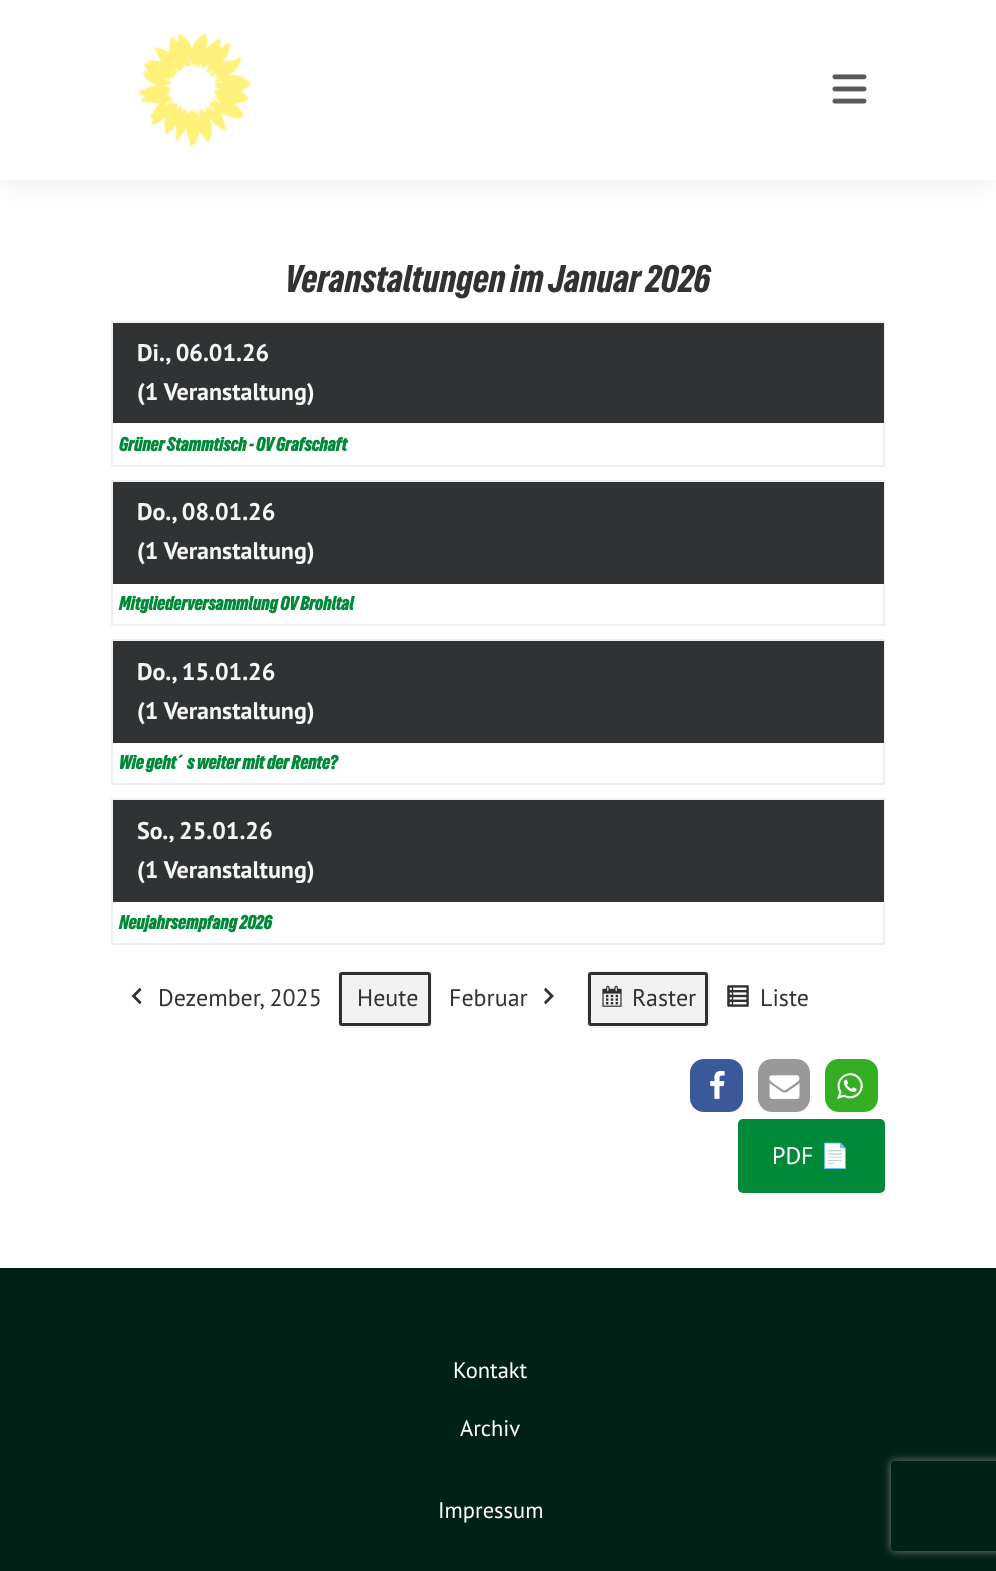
<!DOCTYPE html>
<meta charset="utf-8">
<style>body { margin: 0 } canvas { display: block }</style>
<canvas id="canvas" width="996" height="1571"></canvas>
<script type="module">
  const canvas = document.getElementById("canvas");
  const g = canvas.getContext("2d");
  g.miterLimit = 4;
  g.fontKerning = "normal";
  function drawText(s, x, y, [font, color]) {
    g.font = font;
    g.fillStyle = color;
    g.fillText(s, x, y);
  }
  function fillBox(x, y, w, h, color) {
    g.fillStyle = color;
    g.fillRect(x, y, w, h);
  }
  function fillRounded(x, y, w, h, r, color) {
    g.fillStyle = color;
    g.beginPath();
    g.roundRect(x, y, w, h, r);
    g.fill();
  }
  async function drawPicture(src, x, y, w, h) {
    const img = new Image();
    img.src = src;
    await img.decode();
    g.drawImage(img, x, y, w, h);
  }

  const s1 = ["36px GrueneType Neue", "#313233"];
  const s2 = ["bold 24px PT Sans", "#F6F7F7"];
  const s3 = ["bold 18px GrueneType Neue", "#008939"];
  const s4 = ["24px PT Sans", "#313233"];
  const s5 = ["24px PT Sans", "#FFFFFF"];
  const s6 = ["24px Noto Color Emoji", "#FFFFFF"];
  const s7 = ["22.5px PT Sans", "#FFFFFF"];

  fillBox(0, 0, 996, 1571, "#FFFFFF");
  g.fillStyle = "rgba(0, 0, 0, 0.08)";
  g.filter = "blur(15px)";
  g.beginPath();
  g.rect(0, 2, 996, 180);
  g.fill();
  g.filter = "none";
  fillBox(0, 0, 996, 180, "#FFFFFF");
  await drawPicture("pic1.png", 138, 33, 113, 114);
  await drawPicture("pic2.png", 832, 74, 35, 30);
  drawText("Veranstaltungen im Januar 2026", 285, 292, s1);
  g.strokeStyle = "#EFEFEF";
  g.lineWidth = 2;
  g.strokeRect(112, 322, 772, 144);
  fillBox(113, 323, 771, 100, "#313233");
  drawText("Di., 06.01.26", 137, 361, s2);
  drawText("(1 Veranstaltung)", 137, 400, s2);
  drawText("Grüner Stammtisch - OV Grafschaft", 119, 451, s3);
  g.strokeRect(112, 481, 772, 144);
  fillBox(113, 482, 771, 102, "#313233");
  drawText("Do., 08.01.26", 137, 520, s2);
  drawText("(1 Veranstaltung)", 137, 559, s2);
  drawText("Mitgliederversammlung OV Brohltal", 119, 610, s3);
  g.strokeRect(112, 640, 772, 144);
  fillBox(113, 641, 771, 102, "#313233");
  drawText("Do., 15.01.26", 137, 680, s2);
  drawText("(1 Veranstaltung)", 137, 719, s2);
  drawText("Wie geht´s weiter mit der Rente?", 119, 769, s3);
  g.strokeRect(112, 799, 772, 145);
  fillBox(113, 800, 771, 102, "#313233");
  drawText("So., 25.01.26", 137, 839, s2);
  drawText("(1 Veranstaltung)", 137, 878, s2);
  drawText("Neujahrsempfang 2026", 119, 929, s3);
  g.fillStyle = "#313233";
  g.beginPath();
  g.moveTo(141.5, 990);
  g.lineTo(135.5, 996);
  g.lineTo(141.5, 1002);
  g.lineTo(140, 1004.5);
  g.lineTo(131.5, 996);
  g.lineTo(140, 987.5);
  g.closePath();
  g.fill();
  drawText("Dezember, 2025", 158, 1006, s4);
  fillRounded(338, 971, 94, 57, 5, "#F2F2F2");
  g.beginPath();
  g.roundRect(340.5, 973.5, 89, 51, 1.5);
  g.strokeStyle = "#2F3030";
  g.lineWidth = 3;
  g.stroke();
  drawText("Heute", 357, 1006, s4);
  drawText("Februar", 449, 1006, s4);
  g.beginPath();
  g.moveTo(544, 1002);
  g.lineTo(550, 996);
  g.lineTo(544, 990);
  g.lineTo(545.5, 987.5);
  g.lineTo(554, 996);
  g.lineTo(545.5, 1004.5);
  g.closePath();
  g.fill();
  fillRounded(587, 971, 123, 57, 5, "#F2F2F2");
  await drawPicture("pic3.png", 602, 985, 20, 22);
  g.beginPath();
  g.roundRect(589.5, 973.5, 117, 51, 1.5);
  g.stroke();
  drawText("Raster", 632, 1006, s4);
  await drawPicture("pic4.png", 727, 985, 22, 22);
  drawText("Liste", 760, 1006, s4);
  fillRounded(690, 1059, 53, 53, 14, "#3B5998");
  await drawPicture("pic5.png", 710, 1070, 15, 29);
  fillRounded(758, 1059, 52, 53, 14, "#999999");
  await drawPicture("pic6.png", 769, 1075, 31, 24);
  fillRounded(825, 1059, 53, 53, 14, "#34AF23");
  await drawPicture("pic7.png", 837, 1073, 26, 26);
  fillRounded(738, 1119, 147, 74, 5, "#008939");
  drawText("PDF", 772, 1164, s5);
  drawText("📄", 820, 1164, s6);
  fillBox(0, 1268, 996, 303, "#002216");
  drawText("Kontakt", 453, 1378, s7);
  drawText("Archiv", 460, 1436, s7);
  drawText("Impressum", 438, 1518, s7);
  g.save();
  g.beginPath();
  g.moveTo(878, 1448);
  g.lineTo(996, 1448);
  g.lineTo(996, 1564);
  g.lineTo(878, 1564);
  g.closePath();
  g.moveTo(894, 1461);
  g.lineTo(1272, 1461);
  g.bezierCurveTo(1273.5, 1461, 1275, 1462.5, 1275, 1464);
  g.lineTo(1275, 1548);
  g.bezierCurveTo(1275, 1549.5, 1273.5, 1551, 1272, 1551);
  g.lineTo(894, 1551);
  g.bezierCurveTo(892.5, 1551, 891, 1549.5, 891, 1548);
  g.lineTo(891, 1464);
  g.bezierCurveTo(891, 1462.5, 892.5, 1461, 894, 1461);
  g.closePath();
  g.clip("evenodd");
  g.fillStyle = "#808080";
  g.filter = "blur(4px)";
  g.beginPath();
  g.roundRect(891, 1461, 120, 90, 3);
  g.fill();
  g.filter = "none";
  g.restore();
</script>
